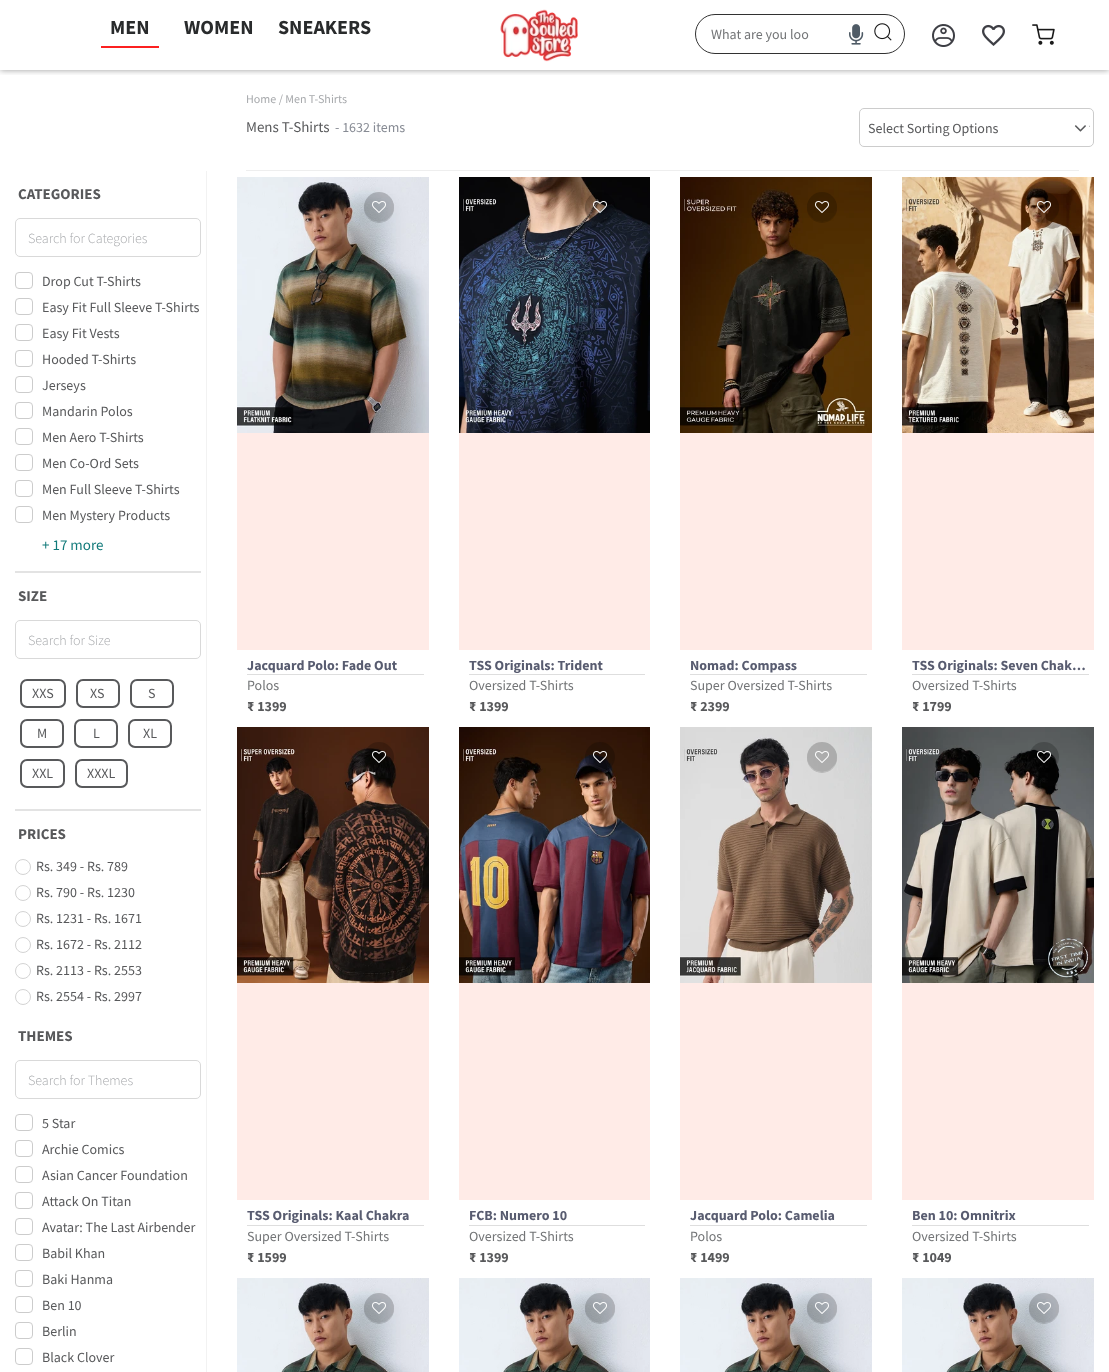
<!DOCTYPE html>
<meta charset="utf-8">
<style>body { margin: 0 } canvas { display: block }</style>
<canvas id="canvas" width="1109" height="1372"></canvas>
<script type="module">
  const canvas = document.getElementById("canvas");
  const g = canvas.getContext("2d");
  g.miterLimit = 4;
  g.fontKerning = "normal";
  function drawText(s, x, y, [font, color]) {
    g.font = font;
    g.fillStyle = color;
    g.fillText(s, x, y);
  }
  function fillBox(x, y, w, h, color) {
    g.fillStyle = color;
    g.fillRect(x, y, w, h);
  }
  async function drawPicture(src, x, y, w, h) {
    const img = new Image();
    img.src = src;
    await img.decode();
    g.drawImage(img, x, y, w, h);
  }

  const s1 = ["bold 20px Source Sans Pro", "#292B2C"];
  const s2 = ["14px Source Sans Pro", "#737577"];
  const s3 = ["12px Source Sans Pro", "#A7A9AC"];
  const s4 = ["15px Source Sans Pro", "#58595B"];
  const s5 = ["14px Source Sans Pro", "#878B94"];
  const s6 = ["14px Source Sans Pro", "#58595B"];
  const s7 = ["bold 15px Source Sans Pro", "#58595B"];
  const s8 = ["300 14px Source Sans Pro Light", "#A7A9AC"];
  const s9 = ["15px Source Sans Pro", "#117A7A"];
  const s10 = ["bold 14px Source Sans Pro", "#585C70"];
  const s11 = ["bold 14px Source Sans Pro", "#58595B"];

  fillBox(0, 0, 1109, 1372, "#FFFFFF");
  g.save();
  g.beginPath();
  g.rect(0, 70, 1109, 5);
  g.clip();
  g.fillStyle = "rgba(0, 0, 0, 0.4)";
  g.filter = "blur(3px)";
  g.beginPath();
  g.rect(0, 0, 1109, 70);
  g.fill();
  g.filter = "none";
  g.restore();
  fillBox(101, 46, 58, 2, "#FC2020");
  drawText("MEN", 110, 34, s1);
  drawText("WOMEN", 184, 34, s1);
  drawText("SNEAKERS", 278, 34, s1);
  await drawPicture("pic1.png", 500, 9, 78, 53);
  g.beginPath();
  g.roundRect(695.5, 14.5, 209, 39, 19.5);
  g.strokeStyle = "#323232";
  g.stroke();
  drawText("What are you loo", 711, 39, s2);
  await drawPicture("pic2.png", 849, 24, 15, 21);
  await drawPicture("pic3.png", 874, 23, 18, 18);
  await drawPicture("pic4.png", 932, 24, 23, 23);
  await drawPicture("pic5.png", 982, 24, 23, 22);
  await drawPicture("pic6.png", 1032, 24, 23, 21);
  fillBox(246, 170, 833, 1, "#EEEEEE");
  drawText("Home / Men T-Shirts", 246, 103, s3);
  drawText("Mens T-Shirts", 246, 132, s4);
  drawText("- 1632 items", 335, 132, s5);
  g.beginPath();
  g.roundRect(859.5, 108.5, 234, 38, 4.5);
  g.strokeStyle = "#CCCCCC";
  g.stroke();
  g.beginPath();
  g.moveTo(1081, 125.5);
  g.lineTo(1085, 129.5);
  g.lineTo(1089, 125.5);
  g.strokeStyle = "#58595B";
  g.lineWidth = 2;
  g.stroke();
  drawText("Select Sorting Options", 868, 133, s6);
  fillBox(1080, 124, 9, 7, "#FFFFFF");
  await drawPicture("pic7.png", 1074, 125, 12, 7);
  fillBox(206, 171, 1, 1201, "#F2F2F2");
  drawText("CATEGORIES", 18, 199, s7);
  g.beginPath();
  g.roundRect(15.5, 218.5, 185, 38, 4.5);
  g.strokeStyle = "#D9D9D9";
  g.lineWidth = 1;
  g.stroke();
  drawText("Search for Categories", 28, 243, s8);
  g.beginPath();
  g.roundRect(15.5, 272.5, 17, 16, 3.5);
  g.strokeStyle = "#CCCCCC";
  g.stroke();
  drawText("Drop Cut T-Shirts", 42, 286, s6);
  g.beginPath();
  g.roundRect(15.5, 298.5, 17, 16, 3.5);
  g.stroke();
  drawText("Easy Fit Full Sleeve T-Shirts", 42, 312, s6);
  g.beginPath();
  g.roundRect(15.5, 324.5, 17, 16, 3.5);
  g.stroke();
  drawText("Easy Fit Vests", 42, 338, s6);
  g.beginPath();
  g.roundRect(15.5, 350.5, 17, 16, 3.5);
  g.stroke();
  drawText("Hooded T-Shirts", 42, 364, s6);
  g.beginPath();
  g.roundRect(15.5, 376.5, 17, 16, 3.5);
  g.stroke();
  drawText("Jerseys", 42, 390, s6);
  g.beginPath();
  g.roundRect(15.5, 402.5, 17, 16, 3.5);
  g.stroke();
  drawText("Mandarin Polos", 42, 416, s6);
  g.beginPath();
  g.roundRect(15.5, 428.5, 17, 16, 3.5);
  g.stroke();
  drawText("Men Aero T-Shirts", 42, 442, s6);
  g.beginPath();
  g.roundRect(15.5, 454.5, 17, 16, 3.5);
  g.stroke();
  drawText("Men Co-Ord Sets", 42, 468, s6);
  g.beginPath();
  g.roundRect(15.5, 480.5, 17, 16, 3.5);
  g.stroke();
  drawText("Men Full Sleeve T-Shirts", 42, 494, s6);
  g.beginPath();
  g.roundRect(15.5, 506.5, 17, 16, 3.5);
  g.stroke();
  drawText("Men Mystery Products", 42, 520, s6);
  drawText("+ 17 more", 42, 550, s9);
  fillBox(15, 571, 186, 2, "#E3E3E3");
  drawText("SIZE", 18, 601, s7);
  g.beginPath();
  g.roundRect(15.5, 620.5, 185, 38, 4.5);
  g.strokeStyle = "#D9D9D9";
  g.stroke();
  drawText("Search for Size", 28, 645, s8);
  g.beginPath();
  g.roundRect(21, 680, 44, 27, 6);
  g.strokeStyle = "#58595B";
  g.lineWidth = 2;
  g.stroke();
  drawText("XXS", 32, 698, s6);
  g.beginPath();
  g.roundRect(77, 680, 42, 27, 6);
  g.stroke();
  drawText("XS", 90, 698, s6);
  g.beginPath();
  g.roundRect(131, 680, 42, 27, 6);
  g.stroke();
  drawText("S", 148, 698, s6);
  g.beginPath();
  g.roundRect(21, 720, 42, 27, 6);
  g.stroke();
  drawText("M", 37, 738, s6);
  g.beginPath();
  g.roundRect(75, 720, 42, 27, 6);
  g.stroke();
  drawText("L", 93, 738, s6);
  g.beginPath();
  g.roundRect(129, 720, 42, 27, 6);
  g.stroke();
  drawText("XL", 143, 738, s6);
  g.beginPath();
  g.roundRect(21, 760, 43, 27, 6);
  g.stroke();
  drawText("XXL", 32, 778, s6);
  g.beginPath();
  g.roundRect(76, 760, 51, 27, 6);
  g.stroke();
  drawText("XXXL", 87, 778, s6);
  fillBox(15, 809, 186, 2, "#E3E3E3");
  drawText("PRICES", 18, 839, s7);
  g.beginPath();
  g.arc(23, 867, 7.5, 0, Math.PI * 2);
  g.strokeStyle = "#D3D3D3";
  g.lineWidth = 1;
  g.stroke();
  drawText("Rs. 349 - Rs. 789", 36, 871, s6);
  g.beginPath();
  g.arc(23, 893, 7.5, 0, Math.PI * 2);
  g.stroke();
  drawText("Rs. 790 - Rs. 1230", 36, 897, s6);
  g.beginPath();
  g.arc(23, 919, 7.5, 0, Math.PI * 2);
  g.stroke();
  drawText("Rs. 1231 - Rs. 1671", 36, 923, s6);
  g.beginPath();
  g.arc(23, 945, 7.5, 0, Math.PI * 2);
  g.stroke();
  drawText("Rs. 1672 - Rs. 2112", 36, 949, s6);
  g.beginPath();
  g.arc(23, 971, 7.5, 0, Math.PI * 2);
  g.stroke();
  drawText("Rs. 2113 - Rs. 2553", 36, 975, s6);
  g.beginPath();
  g.arc(23, 997, 7.5, 0, Math.PI * 2);
  g.stroke();
  drawText("Rs. 2554 - Rs. 2997", 36, 1001, s6);
  drawText("THEMES", 18, 1041, s7);
  g.beginPath();
  g.roundRect(15.5, 1060.5, 185, 38, 4.5);
  g.strokeStyle = "#D9D9D9";
  g.stroke();
  drawText("Search for Themes", 28, 1085, s8);
  g.beginPath();
  g.roundRect(15.5, 1114.5, 17, 16, 3.5);
  g.strokeStyle = "#CCCCCC";
  g.stroke();
  drawText("5 Star", 42, 1128, s6);
  g.beginPath();
  g.roundRect(15.5, 1140.5, 17, 16, 3.5);
  g.stroke();
  drawText("Archie Comics", 42, 1154, s6);
  g.beginPath();
  g.roundRect(15.5, 1166.5, 17, 16, 3.5);
  g.stroke();
  drawText("Asian Cancer Foundation", 42, 1180, s6);
  g.beginPath();
  g.roundRect(15.5, 1192.5, 17, 16, 3.5);
  g.stroke();
  drawText("Attack On Titan", 42, 1206, s6);
  g.beginPath();
  g.roundRect(15.5, 1218.5, 17, 16, 3.5);
  g.stroke();
  drawText("Avatar: The Last Airbender", 42, 1232, s6);
  g.beginPath();
  g.roundRect(15.5, 1244.5, 17, 16, 3.5);
  g.stroke();
  drawText("Babil Khan", 42, 1258, s6);
  g.beginPath();
  g.roundRect(15.5, 1270.5, 17, 16, 3.5);
  g.stroke();
  drawText("Baki Hanma", 42, 1284, s6);
  g.beginPath();
  g.roundRect(15.5, 1296.5, 17, 16, 3.5);
  g.stroke();
  drawText("Ben 10", 42, 1310, s6);
  g.beginPath();
  g.roundRect(15.5, 1322.5, 17, 16, 3.5);
  g.stroke();
  drawText("Berlin", 42, 1336, s6);
  g.beginPath();
  g.roundRect(15.5, 1348.5, 17, 16, 3.5);
  g.stroke();
  drawText("Black Clover", 42, 1362, s6);
  fillBox(237, 433, 192, 217, "#FFEBE7");
  await drawPicture("pic8.png", 237, 177, 192, 256);
  g.save();
  g.beginPath();
  g.moveTo(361, 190);
  g.lineTo(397, 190);
  g.lineTo(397, 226);
  g.lineTo(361, 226);
  g.closePath();
  g.moveTo(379, 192);
  g.bezierCurveTo(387.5, 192, 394, 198.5, 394, 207);
  g.bezierCurveTo(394, 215.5, 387.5, 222, 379, 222);
  g.bezierCurveTo(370.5, 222, 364, 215.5, 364, 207);
  g.bezierCurveTo(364, 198.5, 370.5, 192, 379, 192);
  g.closePath();
  g.clip("evenodd");
  g.fillStyle = "rgba(0, 0, 0, 0.16)";
  g.filter = "blur(0.5px)";
  g.beginPath();
  g.roundRect(364, 193, 30, 30, 15);
  g.fill();
  g.filter = "none";
  g.restore();
  g.fillStyle = "rgba(0, 0, 0, 0.2)";
  g.beginPath();
  g.arc(379, 207, 15, 0, Math.PI * 2);
  g.fill();
  await drawPicture("pic9.png", 372, 201, 14, 12);
  fillBox(247, 674, 177, 1, "#DEDEDE");
  drawText("Jacquard Polo: Fade Out", 247, 670, s10);
  drawText("Polos", 247, 690, s2);
  drawText("₹ 1399", 247, 711, s11);
  fillBox(459, 433, 191, 217, "#FFEBE7");
  await drawPicture("pic10.png", 459, 177, 191, 256);
  g.save();
  g.beginPath();
  g.moveTo(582, 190);
  g.lineTo(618, 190);
  g.lineTo(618, 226);
  g.lineTo(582, 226);
  g.closePath();
  g.moveTo(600, 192);
  g.bezierCurveTo(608.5, 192, 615, 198.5, 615, 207);
  g.bezierCurveTo(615, 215.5, 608.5, 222, 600, 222);
  g.bezierCurveTo(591.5, 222, 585, 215.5, 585, 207);
  g.bezierCurveTo(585, 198.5, 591.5, 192, 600, 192);
  g.closePath();
  g.clip("evenodd");
  g.fillStyle = "rgba(0, 0, 0, 0.16)";
  g.filter = "blur(0.5px)";
  g.beginPath();
  g.roundRect(585, 193, 30, 30, 15);
  g.fill();
  g.filter = "none";
  g.restore();
  g.fillStyle = "rgba(0, 0, 0, 0.2)";
  g.beginPath();
  g.arc(600, 207, 15, 0, Math.PI * 2);
  g.fill();
  await drawPicture("pic11.png", 593, 201, 14, 12);
  fillBox(469, 674, 176, 1, "#DEDEDE");
  drawText("TSS Originals: Trident", 469, 670, s10);
  drawText("Oversized T-Shirts", 469, 690, s2);
  drawText("₹ 1399", 469, 711, s11);
  fillBox(680, 433, 192, 217, "#FFEBE7");
  await drawPicture("pic12.png", 680, 177, 192, 256);
  g.save();
  g.beginPath();
  g.moveTo(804, 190);
  g.lineTo(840, 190);
  g.lineTo(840, 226);
  g.lineTo(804, 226);
  g.closePath();
  g.moveTo(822, 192);
  g.bezierCurveTo(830.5, 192, 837, 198.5, 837, 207);
  g.bezierCurveTo(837, 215.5, 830.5, 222, 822, 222);
  g.bezierCurveTo(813.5, 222, 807, 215.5, 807, 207);
  g.bezierCurveTo(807, 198.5, 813.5, 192, 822, 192);
  g.closePath();
  g.clip("evenodd");
  g.fillStyle = "rgba(0, 0, 0, 0.16)";
  g.filter = "blur(0.5px)";
  g.beginPath();
  g.roundRect(807, 193, 30, 30, 15);
  g.fill();
  g.filter = "none";
  g.restore();
  g.fillStyle = "rgba(0, 0, 0, 0.2)";
  g.beginPath();
  g.arc(822, 207, 15, 0, Math.PI * 2);
  g.fill();
  await drawPicture("pic13.png", 815, 201, 14, 12);
  fillBox(690, 674, 177, 1, "#DEDEDE");
  drawText("Nomad: Compass", 690, 670, s10);
  drawText("Super Oversized T-Shirts", 690, 690, s2);
  drawText("₹ 2399", 690, 711, s11);
  fillBox(902, 433, 192, 217, "#FFEBE7");
  await drawPicture("pic14.png", 902, 177, 192, 256);
  g.save();
  g.beginPath();
  g.moveTo(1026, 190);
  g.lineTo(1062, 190);
  g.lineTo(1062, 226);
  g.lineTo(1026, 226);
  g.closePath();
  g.moveTo(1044, 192);
  g.bezierCurveTo(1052.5, 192, 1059, 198.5, 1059, 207);
  g.bezierCurveTo(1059, 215.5, 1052.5, 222, 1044, 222);
  g.bezierCurveTo(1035.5, 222, 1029, 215.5, 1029, 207);
  g.bezierCurveTo(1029, 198.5, 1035.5, 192, 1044, 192);
  g.closePath();
  g.clip("evenodd");
  g.fillStyle = "rgba(0, 0, 0, 0.16)";
  g.filter = "blur(0.5px)";
  g.beginPath();
  g.roundRect(1029, 193, 30, 30, 15);
  g.fill();
  g.filter = "none";
  g.restore();
  g.fillStyle = "rgba(0, 0, 0, 0.2)";
  g.beginPath();
  g.arc(1044, 207, 15, 0, Math.PI * 2);
  g.fill();
  await drawPicture("pic15.png", 1037, 201, 14, 12);
  fillBox(912, 674, 177, 1, "#DEDEDE");
  drawText("TSS Originals: Seven Chak…", 912, 670, s10);
  drawText("Oversized T-Shirts", 912, 690, s2);
  drawText("₹ 1799", 912, 711, s11);
  fillBox(237, 983, 192, 217, "#FFEBE7");
  await drawPicture("pic16.png", 237, 727, 192, 256);
  g.fillStyle = "rgba(0, 0, 0, 0.2)";
  g.beginPath();
  g.arc(379, 757, 15, 0, Math.PI * 2);
  g.fill();
  await drawPicture("pic17.png", 372, 751, 14, 12);
  fillBox(247, 1225, 177, 1, "#DEDEDE");
  drawText("TSS Originals: Kaal Chakra", 247, 1220, s10);
  drawText("Super Oversized T-Shirts", 247, 1241, s2);
  drawText("₹ 1599", 247, 1262, s11);
  fillBox(459, 983, 191, 217, "#FFEBE7");
  await drawPicture("pic18.png", 459, 727, 191, 256);
  g.fillStyle = "rgba(0, 0, 0, 0.2)";
  g.beginPath();
  g.arc(600, 757, 15, 0, Math.PI * 2);
  g.fill();
  await drawPicture("pic19.png", 593, 751, 14, 12);
  fillBox(469, 1225, 176, 1, "#DEDEDE");
  drawText("FCB: Numero 10", 469, 1220, s10);
  drawText("Oversized T-Shirts", 469, 1241, s2);
  drawText("₹ 1399", 469, 1262, s11);
  fillBox(680, 983, 192, 217, "#FFEBE7");
  await drawPicture("pic20.png", 680, 727, 192, 256);
  g.save();
  g.beginPath();
  g.moveTo(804, 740);
  g.lineTo(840, 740);
  g.lineTo(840, 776);
  g.lineTo(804, 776);
  g.closePath();
  g.moveTo(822, 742);
  g.bezierCurveTo(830.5, 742, 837, 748.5, 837, 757);
  g.bezierCurveTo(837, 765.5, 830.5, 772, 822, 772);
  g.bezierCurveTo(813.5, 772, 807, 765.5, 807, 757);
  g.bezierCurveTo(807, 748.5, 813.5, 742, 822, 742);
  g.closePath();
  g.clip("evenodd");
  g.fillStyle = "rgba(0, 0, 0, 0.16)";
  g.filter = "blur(0.5px)";
  g.beginPath();
  g.roundRect(807, 743, 30, 30, 15);
  g.fill();
  g.filter = "none";
  g.restore();
  g.fillStyle = "rgba(0, 0, 0, 0.2)";
  g.beginPath();
  g.arc(822, 757, 15, 0, Math.PI * 2);
  g.fill();
  await drawPicture("pic21.png", 815, 751, 14, 12);
  fillBox(690, 1225, 177, 1, "#DEDEDE");
  drawText("Jacquard Polo: Camelia", 690, 1220, s10);
  drawText("Polos", 690, 1241, s2);
  drawText("₹ 1499", 690, 1262, s11);
  fillBox(902, 983, 192, 217, "#FFEBE7");
  await drawPicture("pic22.png", 902, 727, 192, 256);
  g.fillStyle = "rgba(0, 0, 0, 0.2)";
  g.beginPath();
  g.arc(1044, 757, 15, 0, Math.PI * 2);
  g.fill();
  await drawPicture("pic23.png", 1037, 751, 14, 12);
  fillBox(912, 1225, 177, 1, "#DEDEDE");
  drawText("Ben 10: Omnitrix", 912, 1220, s10);
  drawText("Oversized T-Shirts", 912, 1241, s2);
  drawText("₹ 1049", 912, 1262, s11);
  await drawPicture("pic24.png", 237, 1278, 192, 94);
  g.save();
  g.beginPath();
  g.moveTo(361, 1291);
  g.lineTo(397, 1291);
  g.lineTo(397, 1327);
  g.lineTo(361, 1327);
  g.closePath();
  g.moveTo(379, 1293);
  g.bezierCurveTo(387.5, 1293, 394, 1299.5, 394, 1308);
  g.bezierCurveTo(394, 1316.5, 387.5, 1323, 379, 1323);
  g.bezierCurveTo(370.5, 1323, 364, 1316.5, 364, 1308);
  g.bezierCurveTo(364, 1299.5, 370.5, 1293, 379, 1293);
  g.closePath();
  g.clip("evenodd");
  g.fillStyle = "rgba(0, 0, 0, 0.16)";
  g.filter = "blur(0.5px)";
  g.beginPath();
  g.roundRect(364, 1294, 30, 30, 15);
  g.fill();
  g.filter = "none";
  g.restore();
  g.fillStyle = "rgba(0, 0, 0, 0.2)";
  g.beginPath();
  g.arc(379, 1308, 15, 0, Math.PI * 2);
  g.fill();
  await drawPicture("pic9.png", 372, 1302, 14, 12);
  await drawPicture("pic25.png", 459, 1278, 191, 94);
  g.save();
  g.beginPath();
  g.moveTo(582, 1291);
  g.lineTo(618, 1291);
  g.lineTo(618, 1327);
  g.lineTo(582, 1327);
  g.closePath();
  g.moveTo(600, 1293);
  g.bezierCurveTo(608.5, 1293, 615, 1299.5, 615, 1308);
  g.bezierCurveTo(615, 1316.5, 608.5, 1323, 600, 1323);
  g.bezierCurveTo(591.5, 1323, 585, 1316.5, 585, 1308);
  g.bezierCurveTo(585, 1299.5, 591.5, 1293, 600, 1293);
  g.closePath();
  g.clip("evenodd");
  g.fillStyle = "rgba(0, 0, 0, 0.16)";
  g.filter = "blur(0.5px)";
  g.beginPath();
  g.roundRect(585, 1294, 30, 30, 15);
  g.fill();
  g.filter = "none";
  g.restore();
  g.beginPath();
  g.arc(600, 1308, 15, 0, Math.PI * 2);
  g.fill();
  await drawPicture("pic26.png", 593, 1302, 14, 12);
  await drawPicture("pic24.png", 680, 1278, 192, 94);
  g.save();
  g.beginPath();
  g.moveTo(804, 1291);
  g.lineTo(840, 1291);
  g.lineTo(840, 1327);
  g.lineTo(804, 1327);
  g.closePath();
  g.moveTo(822, 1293);
  g.bezierCurveTo(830.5, 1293, 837, 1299.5, 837, 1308);
  g.bezierCurveTo(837, 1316.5, 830.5, 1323, 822, 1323);
  g.bezierCurveTo(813.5, 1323, 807, 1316.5, 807, 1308);
  g.bezierCurveTo(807, 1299.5, 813.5, 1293, 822, 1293);
  g.closePath();
  g.clip("evenodd");
  g.fillStyle = "rgba(0, 0, 0, 0.16)";
  g.filter = "blur(0.5px)";
  g.beginPath();
  g.roundRect(807, 1294, 30, 30, 15);
  g.fill();
  g.filter = "none";
  g.restore();
  g.beginPath();
  g.arc(822, 1308, 15, 0, Math.PI * 2);
  g.fill();
  await drawPicture("pic9.png", 815, 1302, 14, 12);
  await drawPicture("pic24.png", 902, 1278, 192, 94);
  g.save();
  g.beginPath();
  g.moveTo(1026, 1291);
  g.lineTo(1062, 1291);
  g.lineTo(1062, 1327);
  g.lineTo(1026, 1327);
  g.closePath();
  g.moveTo(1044, 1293);
  g.bezierCurveTo(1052.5, 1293, 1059, 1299.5, 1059, 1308);
  g.bezierCurveTo(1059, 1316.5, 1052.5, 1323, 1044, 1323);
  g.bezierCurveTo(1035.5, 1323, 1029, 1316.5, 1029, 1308);
  g.bezierCurveTo(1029, 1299.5, 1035.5, 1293, 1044, 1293);
  g.closePath();
  g.clip("evenodd");
  g.fillStyle = "rgba(0, 0, 0, 0.16)";
  g.filter = "blur(0.5px)";
  g.beginPath();
  g.roundRect(1029, 1294, 30, 30, 15);
  g.fill();
  g.filter = "none";
  g.restore();
  g.beginPath();
  g.arc(1044, 1308, 15, 0, Math.PI * 2);
  g.fill();
  await drawPicture("pic9.png", 1037, 1302, 14, 12);
</script>
